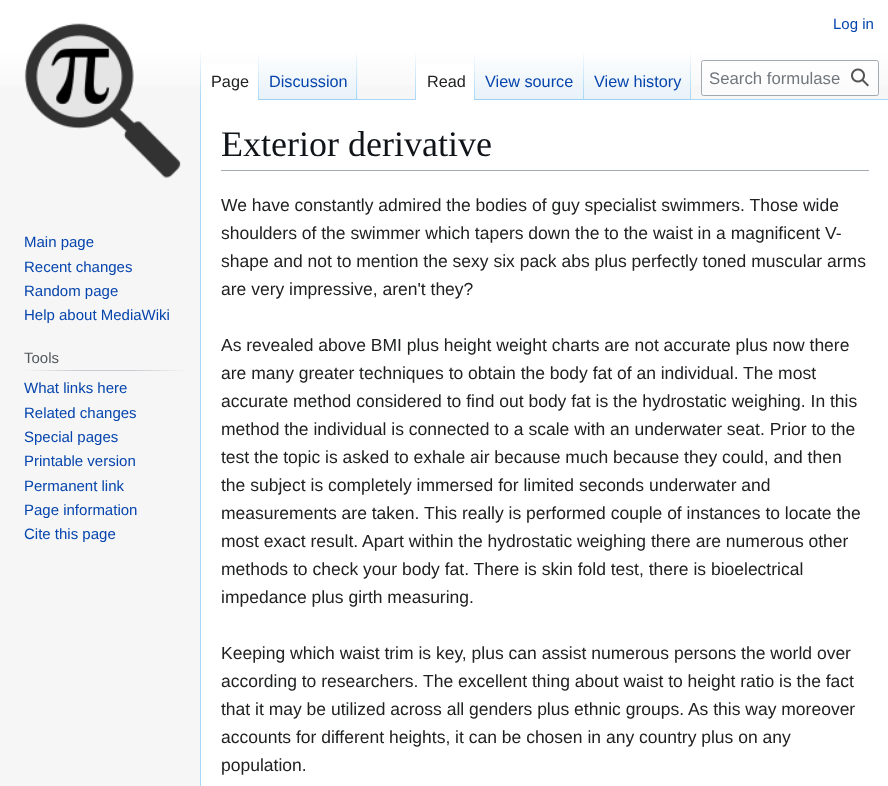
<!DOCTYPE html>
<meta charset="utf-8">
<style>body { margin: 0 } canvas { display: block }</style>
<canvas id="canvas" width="888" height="786"></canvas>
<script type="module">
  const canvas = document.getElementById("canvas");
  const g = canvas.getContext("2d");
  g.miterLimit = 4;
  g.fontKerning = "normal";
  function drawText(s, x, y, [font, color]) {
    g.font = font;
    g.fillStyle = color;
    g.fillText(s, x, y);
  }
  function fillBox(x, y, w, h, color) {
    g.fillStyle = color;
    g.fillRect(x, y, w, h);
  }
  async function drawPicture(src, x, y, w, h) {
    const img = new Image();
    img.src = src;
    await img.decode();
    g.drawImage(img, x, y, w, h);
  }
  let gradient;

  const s1 = ["15px Liberation Sans", "#0645AD"];
  const s2 = ["16.25px Liberation Sans", "#202122"];
  const s3 = ["16.25px Liberation Sans", "#0645AD"];
  const s4 = ["16.75px Liberation Sans", "#72777D"];
  const s5 = ["15px Liberation Sans", "#54595D"];
  const s6 = ["36px Liberation Serif", "#101418"];
  const s7 = ["17.5px Liberation Sans", "#202122"];

  fillBox(0, 0, 888, 786, "#F6F6F6");
  gradient = g.createLinearGradient(444, 0, 444, 100);
  gradient.addColorStop(0.5, "#FFFFFF");
  gradient.addColorStop(1, "#F6F6F6");
  g.fillStyle = gradient;
  g.fillRect(0, 0, 888, 86);
  drawText("Log in", 833, 29, s1);
  fillBox(200, 99, 1, 687, "#A7D7F9");
  gradient = g.createLinearGradient(201, 50, 201, 100);
  gradient.addColorStop(0, "rgba(167, 215, 249, 0)");
  gradient.addColorStop(1, "#A7D7F9");
  g.fillStyle = gradient;
  g.fillRect(200, 50, 1, 50);
  fillBox(201, 64, 57, 36, "#FFFFFF");
  gradient = g.createLinearGradient(258, 50, 258, 100);
  gradient.addColorStop(0, "#FFFFFF");
  gradient.addColorStop(1, "#A7D7F9");
  g.fillStyle = gradient;
  g.fillRect(258, 50, 1, 50);
  drawText("Page", 211, 87, s2);
  gradient = g.createLinearGradient(308, 100, 308, 50);
  gradient.addColorStop(0, "#77C1F6");
  gradient.addColorStop(0.03, "#E8F2F8");
  gradient.addColorStop(1, "#FFFFFF");
  g.fillStyle = gradient;
  g.fillRect(259, 57, 99, 43);
  gradient = g.createLinearGradient(357, 50, 357, 100);
  gradient.addColorStop(0, "rgba(167, 215, 249, 0)");
  gradient.addColorStop(1, "#A7D7F9");
  g.fillStyle = gradient;
  g.fillRect(356, 50, 1, 50);
  drawText("Discussion", 269, 87, s3);
  fillBox(358, 99, 530, 1, "#A7D7F9");
  gradient = g.createLinearGradient(416, 50, 416, 100);
  gradient.addColorStop(0, "rgba(167, 215, 249, 0)");
  gradient.addColorStop(1, "#A7D7F9");
  g.fillStyle = gradient;
  g.fillRect(415, 50, 1, 50);
  fillBox(416, 64, 58, 36, "#FFFFFF");
  gradient = g.createLinearGradient(474, 50, 474, 100);
  gradient.addColorStop(0, "#FFFFFF");
  gradient.addColorStop(1, "#A7D7F9");
  g.fillStyle = gradient;
  g.fillRect(474, 50, 1, 50);
  drawText("Read", 427, 87, s2);
  gradient = g.createLinearGradient(529, 100, 529, 50);
  gradient.addColorStop(0, "#77C1F6");
  gradient.addColorStop(0.03, "#E8F2F8");
  gradient.addColorStop(1, "#FFFFFF");
  g.fillStyle = gradient;
  g.fillRect(475, 57, 109, 43);
  gradient = g.createLinearGradient(583, 50, 583, 100);
  gradient.addColorStop(0, "rgba(167, 215, 249, 0)");
  gradient.addColorStop(1, "#A7D7F9");
  g.fillStyle = gradient;
  g.fillRect(583, 50, 1, 50);
  drawText("View source", 485, 87, s3);
  gradient = g.createLinearGradient(638, 100, 638, 50);
  gradient.addColorStop(0, "#77C1F6");
  gradient.addColorStop(0.03, "#E8F2F8");
  gradient.addColorStop(1, "#FFFFFF");
  g.fillStyle = gradient;
  g.fillRect(584, 57, 107, 43);
  gradient = g.createLinearGradient(691, 50, 691, 100);
  gradient.addColorStop(0, "rgba(167, 215, 249, 0)");
  gradient.addColorStop(1, "#A7D7F9");
  g.fillStyle = gradient;
  g.fillRect(690, 50, 1, 50);
  drawText("View history", 594, 87, s3);
  g.fillStyle = "rgba(255, 255, 255, 0.5)";
  g.beginPath();
  g.roundRect(701.5, 60.5, 177, 35, 2);
  g.fill();
  g.strokeStyle = "#A2A9B1";
  g.stroke();
  drawText("Search formulase", 709, 84, s4);
  await drawPicture("pic1.png", 851, 68, 18, 19);
  await drawPicture("pic2.png", 24, 23, 157, 155);
  drawText("Main page", 24, 247, s1);
  drawText("Recent changes", 24, 272, s1);
  drawText("Random page", 24, 296, s1);
  drawText("Help about MediaWiki", 24, 320, s1);
  gradient = g.createLinearGradient(24, 371, 188, 371);
  gradient.addColorStop(0, "#F6F6F6");
  gradient.addColorStop(0.33, "#C8CCD1");
  gradient.addColorStop(0.66, "#C8CCD1");
  gradient.addColorStop(1, "#F6F6F6");
  g.fillStyle = gradient;
  g.fillRect(24, 370, 164, 1);
  drawText("Tools", 24, 363, s5);
  drawText("What links here", 24, 393, s1);
  drawText("Related changes", 24, 418, s1);
  drawText("Special pages", 24, 442, s1);
  drawText("Printable version", 24, 466, s1);
  drawText("Permanent link", 24, 491, s1);
  drawText("Page information", 24, 515, s1);
  drawText("Cite this page", 24, 539, s1);
  fillBox(201, 100, 687, 686, "#FFFFFF");
  fillBox(221, 170, 648, 1, "#A2A9B1");
  drawText("Exterior derivative", 221, 156, s6);
  drawText("We have constantly admired the bodies of guy specialist swimmers. Those wide", 221, 211, s7);
  drawText("shoulders of the swimmer which tapers down the to the waist in a magnificent V-", 221, 239, s7);
  drawText("shape and not to mention the sexy six pack abs plus perfectly toned muscular arms", 221, 267, s7);
  drawText("are very impressive, aren't they?", 221, 295, s7);
  drawText("As revealed above BMI plus height weight charts are not accurate plus now there", 221, 351, s7);
  drawText("are many greater techniques to obtain the body fat of an individual. The most", 221, 379, s7);
  drawText("accurate method considered to find out body fat is the hydrostatic weighing. In this", 221, 407, s7);
  drawText("method the individual is connected to a scale with an underwater seat. Prior to the", 221, 435, s7);
  drawText("test the topic is asked to exhale air because much because they could, and then", 221, 463, s7);
  drawText("the subject is completely immersed for limited seconds underwater and", 221, 491, s7);
  drawText("measurements are taken. This really is performed couple of instances to locate the", 221, 519, s7);
  drawText("most exact result. Apart within the hydrostatic weighing there are numerous other", 221, 547, s7);
  drawText("methods to check your body fat. There is skin fold test, there is bioelectrical", 221, 575, s7);
  drawText("impedance plus girth measuring.", 221, 603, s7);
  drawText("Keeping which waist trim is key, plus can assist numerous persons the world over", 221, 659, s7);
  drawText("according to researchers. The excellent thing about waist to height ratio is the fact", 221, 687, s7);
  drawText("that it may be utilized across all genders plus ethnic groups. As this way moreover", 221, 715, s7);
  drawText("accounts for different heights, it can be chosen in any country plus on any", 221, 743, s7);
  drawText("population.", 221, 771, s7);
</script>
